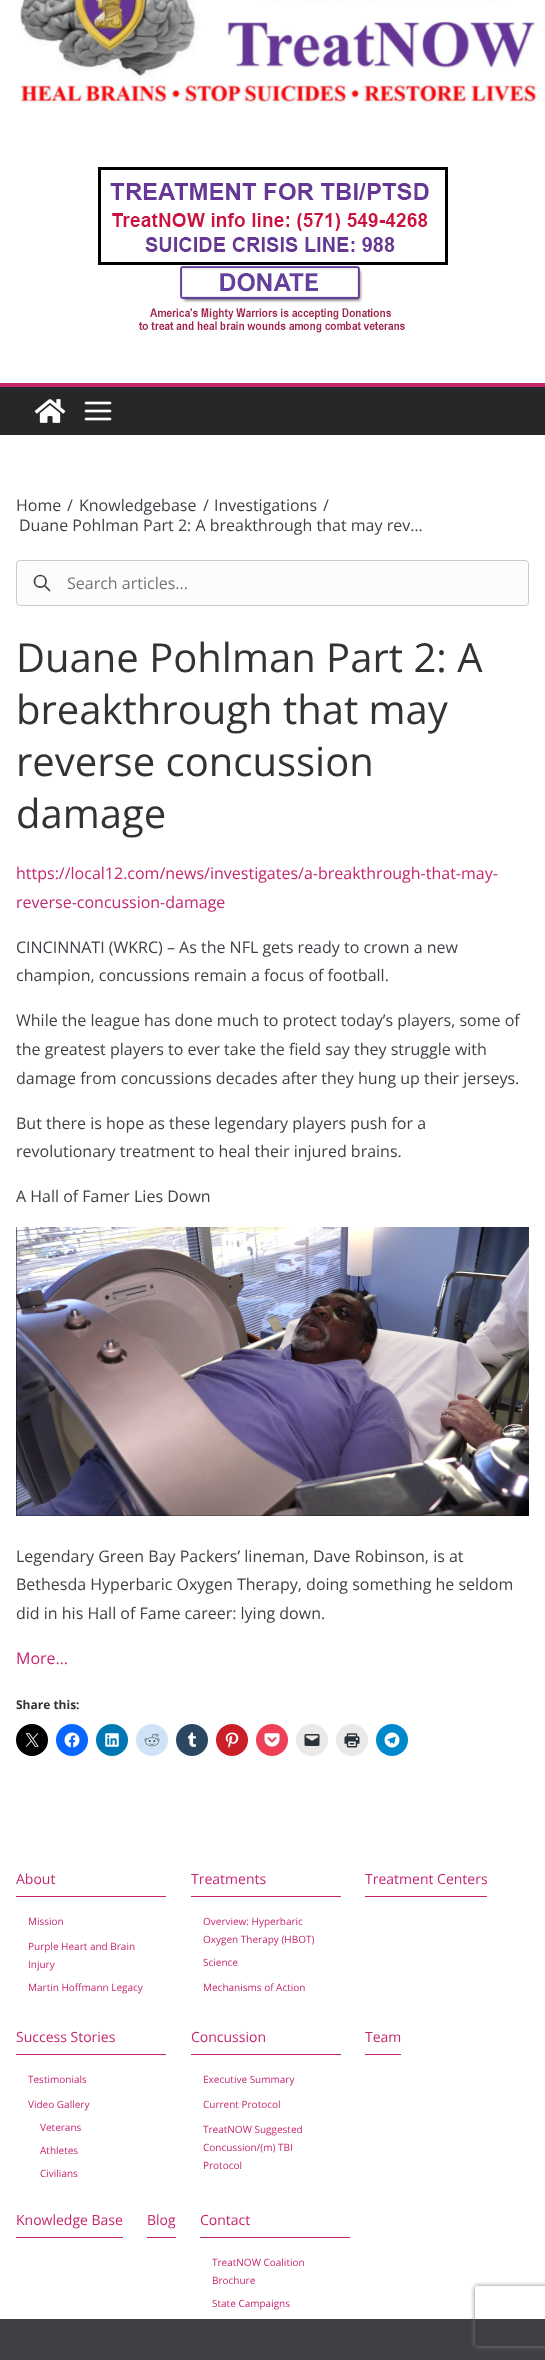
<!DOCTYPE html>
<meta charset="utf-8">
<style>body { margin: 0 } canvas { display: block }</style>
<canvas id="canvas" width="545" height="2360"></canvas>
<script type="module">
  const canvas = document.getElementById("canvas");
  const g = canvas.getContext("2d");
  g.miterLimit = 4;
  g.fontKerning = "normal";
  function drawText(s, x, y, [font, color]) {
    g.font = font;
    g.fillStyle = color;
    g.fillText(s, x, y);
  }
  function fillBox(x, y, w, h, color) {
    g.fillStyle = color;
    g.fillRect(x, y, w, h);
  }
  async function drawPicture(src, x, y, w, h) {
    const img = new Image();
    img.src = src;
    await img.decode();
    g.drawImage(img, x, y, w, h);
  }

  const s1 = ["16px Open Sans", "#3F3F46"];
  const s2 = ["16px Open Sans", "#757575"];
  const s3 = ["40px Open Sans", "#333333"];
  const s4 = ["16px Open Sans", "#C5276F"];
  const s5 = ["bold 12px Open Sans", "#333333"];
  const s6 = ["14px Open Sans", "#C5276F"];
  const s7 = ["10px Open Sans", "#C5276F"];

  fillBox(0, 0, 545, 2360, "#FFFFFF");
  await drawPicture("pic1.png", 20, 0, 517, 104);
  await drawPicture("pic2.png", 98, 167, 350, 98);
  await drawPicture("pic3.png", 139, 266, 266, 67);
  fillBox(0, 387, 545, 48, "#27272A");
  fillBox(0, 383, 545, 4, "#C5276F");
  await drawPicture("pic4.png", 34, 399, 32, 24);
  await drawPicture("pic5.png", 84, 401, 28, 20);
  drawText("Home", 16, 511, s1);
  drawText("/", 67, 511, s1);
  drawText("Knowledgebase", 79, 511, s1);
  drawText("/", 203, 511, s1);
  drawText("Investigations", 214, 511, s1);
  drawText("/", 323, 511, s1);
  drawText("Duane Pohlman Part 2: A breakthrough that may rev…", 19, 531, s1);
  g.fillStyle = "#FCFCFC";
  g.beginPath();
  g.roundRect(16.5, 560.5, 512, 45, 3.5);
  g.fill();
  g.strokeStyle = "#CCCCCC";
  g.stroke();
  g.beginPath();
  g.moveTo(49.5, 590.5);
  g.lineTo(44.5, 585.5);
  g.moveTo(46, 581.5);
  g.bezierCurveTo(46, 589, 34.5, 589, 34.5, 581.5);
  g.bezierCurveTo(34.5, 573.5, 46, 573.5, 46, 581.5);
  g.closePath();
  g.strokeStyle = "#3F3F46";
  g.lineWidth = 1.7;
  g.lineCap = "round";
  g.lineJoin = "round";
  g.stroke();
  drawText("Search articles...", 67, 589, s2);
  drawText("Duane Pohlman Part 2: A", 16, 672, s3);
  drawText("breakthrough that may", 16, 724, s3);
  drawText("reverse concussion", 16, 776, s3);
  drawText("damage", 16, 828, s3);
  drawText("https://local12.com/news/investigates/a-breakthrough-that-may-", 16, 879, s4);
  drawText("reverse-concussion-damage", 16, 908, s4);
  drawText("CINCINNATI (WKRC) – As the NFL gets ready to crown a new", 16, 953, s1);
  drawText("champion, concussions remain a focus of football.", 16, 981, s1);
  drawText("While the league has done much to protect today’s players, some of", 16, 1026, s1);
  drawText("the greatest players to ever take the field say they struggle with", 16, 1055, s1);
  drawText("damage from concussions decades after they hung up their jerseys.", 16, 1084, s1);
  drawText("But there is hope as these legendary players push for a", 16, 1129, s1);
  drawText("revolutionary treatment to heal their injured brains.", 16, 1157, s1);
  drawText("A Hall of Famer Lies Down", 16, 1202, s1);
  await drawPicture("pic6.png", 16, 1227, 513, 289);
  drawText("Legendary Green Bay Packers’ lineman, Dave Robinson, is at", 16, 1562, s1);
  drawText("Bethesda Hyperbaric Oxygen Therapy, doing something he seldom", 16, 1590, s1);
  drawText("did in his Hall of Fame career: lying down.", 16, 1619, s1);
  drawText("More…", 16, 1664, s4);
  drawText("Share this:", 16, 1709, s5);
  g.fillStyle = "#000000";
  g.beginPath();
  g.arc(32, 1740, 16, 0, Math.PI * 2);
  g.fill();
  await drawPicture("pic7.png", 25, 1733, 14, 14);
  g.fillStyle = "#0866FF";
  g.beginPath();
  g.arc(72, 1740, 16, 0, Math.PI * 2);
  g.fill();
  await drawPicture("pic8.png", 64, 1732, 16, 16);
  g.fillStyle = "#0077B5";
  g.beginPath();
  g.arc(112, 1740, 16, 0, Math.PI * 2);
  g.fill();
  await drawPicture("pic9.png", 105, 1733, 14, 14);
  g.fillStyle = "#CEE3F8";
  g.beginPath();
  g.arc(152, 1740, 16, 0, Math.PI * 2);
  g.fill();
  await drawPicture("pic10.png", 144, 1733, 16, 14);
  g.fillStyle = "#2C4762";
  g.beginPath();
  g.arc(192, 1740, 16, 0, Math.PI * 2);
  g.fill();
  await drawPicture("pic11.png", 187, 1732, 10, 15);
  g.fillStyle = "#CA1F27";
  g.beginPath();
  g.arc(232, 1740, 16, 0, Math.PI * 2);
  g.fill();
  await drawPicture("pic12.png", 225, 1732, 14, 16);
  g.fillStyle = "#EE4056";
  g.beginPath();
  g.arc(272, 1740, 16, 0, Math.PI * 2);
  g.fill();
  await drawPicture("pic13.png", 264, 1733, 16, 14);
  g.fillStyle = "#E9E9E9";
  g.beginPath();
  g.arc(312, 1740, 16, 0, Math.PI * 2);
  g.fill();
  await drawPicture("pic14.png", 304, 1734, 16, 12);
  g.beginPath();
  g.arc(352, 1740, 16, 0, Math.PI * 2);
  g.fill();
  await drawPicture("pic15.png", 344, 1733, 16, 15);
  g.fillStyle = "#0088CC";
  g.beginPath();
  g.arc(392, 1740, 16, 0, Math.PI * 2);
  g.fill();
  await drawPicture("pic16.png", 384, 1732, 16, 16);
  fillBox(16, 1896, 150, 1, "#C5276F");
  drawText("About", 16, 1884, s6);
  drawText("Mission", 28, 1925, s7);
  drawText("Purple Heart and Brain", 28, 1950, s7);
  drawText("Injury", 28, 1968, s7);
  drawText("Martin Hoffmann Legacy", 28, 1991, s7);
  fillBox(191, 1896, 150, 1, "#C5276F");
  drawText("Treatments", 191, 1884, s6);
  drawText("Overview: Hyperbaric", 203, 1925, s7);
  drawText("Oxygen Therapy (HBOT)", 203, 1943, s7);
  drawText("Science", 203, 1966, s7);
  drawText("Mechanisms of Action", 203, 1991, s7);
  fillBox(365, 1896, 122, 1, "#C5276F");
  drawText("Treatment Centers", 365, 1884, s6);
  fillBox(16, 2054, 150, 1, "#C5276F");
  drawText("Success Stories", 16, 2042, s6);
  drawText("Testimonials", 28, 2083, s7);
  drawText("Video Gallery", 28, 2108, s7);
  drawText("Veterans", 40, 2131, s7);
  drawText("Athletes", 40, 2154, s7);
  drawText("Civilians", 40, 2177, s7);
  fillBox(191, 2054, 150, 1, "#C5276F");
  drawText("Concussion", 191, 2042, s6);
  drawText("Executive Summary", 203, 2083, s7);
  drawText("Current Protocol", 203, 2108, s7);
  drawText("TreatNOW Suggested", 203, 2133, s7);
  drawText("Concussion/(m) TBI", 203, 2151, s7);
  drawText("Protocol", 203, 2169, s7);
  fillBox(365, 2054, 36, 1, "#C5276F");
  drawText("Team", 365, 2042, s6);
  fillBox(16, 2237, 107, 1, "#C5276F");
  drawText("Knowledge Base", 16, 2225, s6);
  fillBox(147, 2237, 29, 1, "#C5276F");
  drawText("Blog", 147, 2225, s6);
  fillBox(200, 2237, 150, 1, "#C5276F");
  drawText("Contact", 200, 2225, s6);
  drawText("TreatNOW Coalition", 212, 2266, s7);
  drawText("Brochure", 212, 2284, s7);
  drawText("State Campaigns", 212, 2307, s7);
  fillBox(0, 2319, 545, 41, "#3F3F46");
  g.save();
  g.beginPath();
  g.moveTo(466, 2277);
  g.lineTo(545, 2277);
  g.lineTo(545, 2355);
  g.lineTo(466, 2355);
  g.closePath();
  g.moveTo(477, 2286);
  g.lineTo(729, 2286);
  g.bezierCurveTo(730, 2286, 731, 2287, 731, 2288);
  g.lineTo(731, 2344);
  g.bezierCurveTo(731, 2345, 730, 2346, 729, 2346);
  g.lineTo(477, 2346);
  g.bezierCurveTo(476, 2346, 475, 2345, 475, 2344);
  g.lineTo(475, 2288);
  g.bezierCurveTo(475, 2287, 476, 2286, 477, 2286);
  g.closePath();
  g.clip("evenodd");
  g.fillStyle = "#808080";
  g.filter = "blur(2.5px)";
  g.beginPath();
  g.roundRect(475, 2286, 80, 60, 2);
  g.fill();
  g.filter = "none";
  g.restore();
</script>
